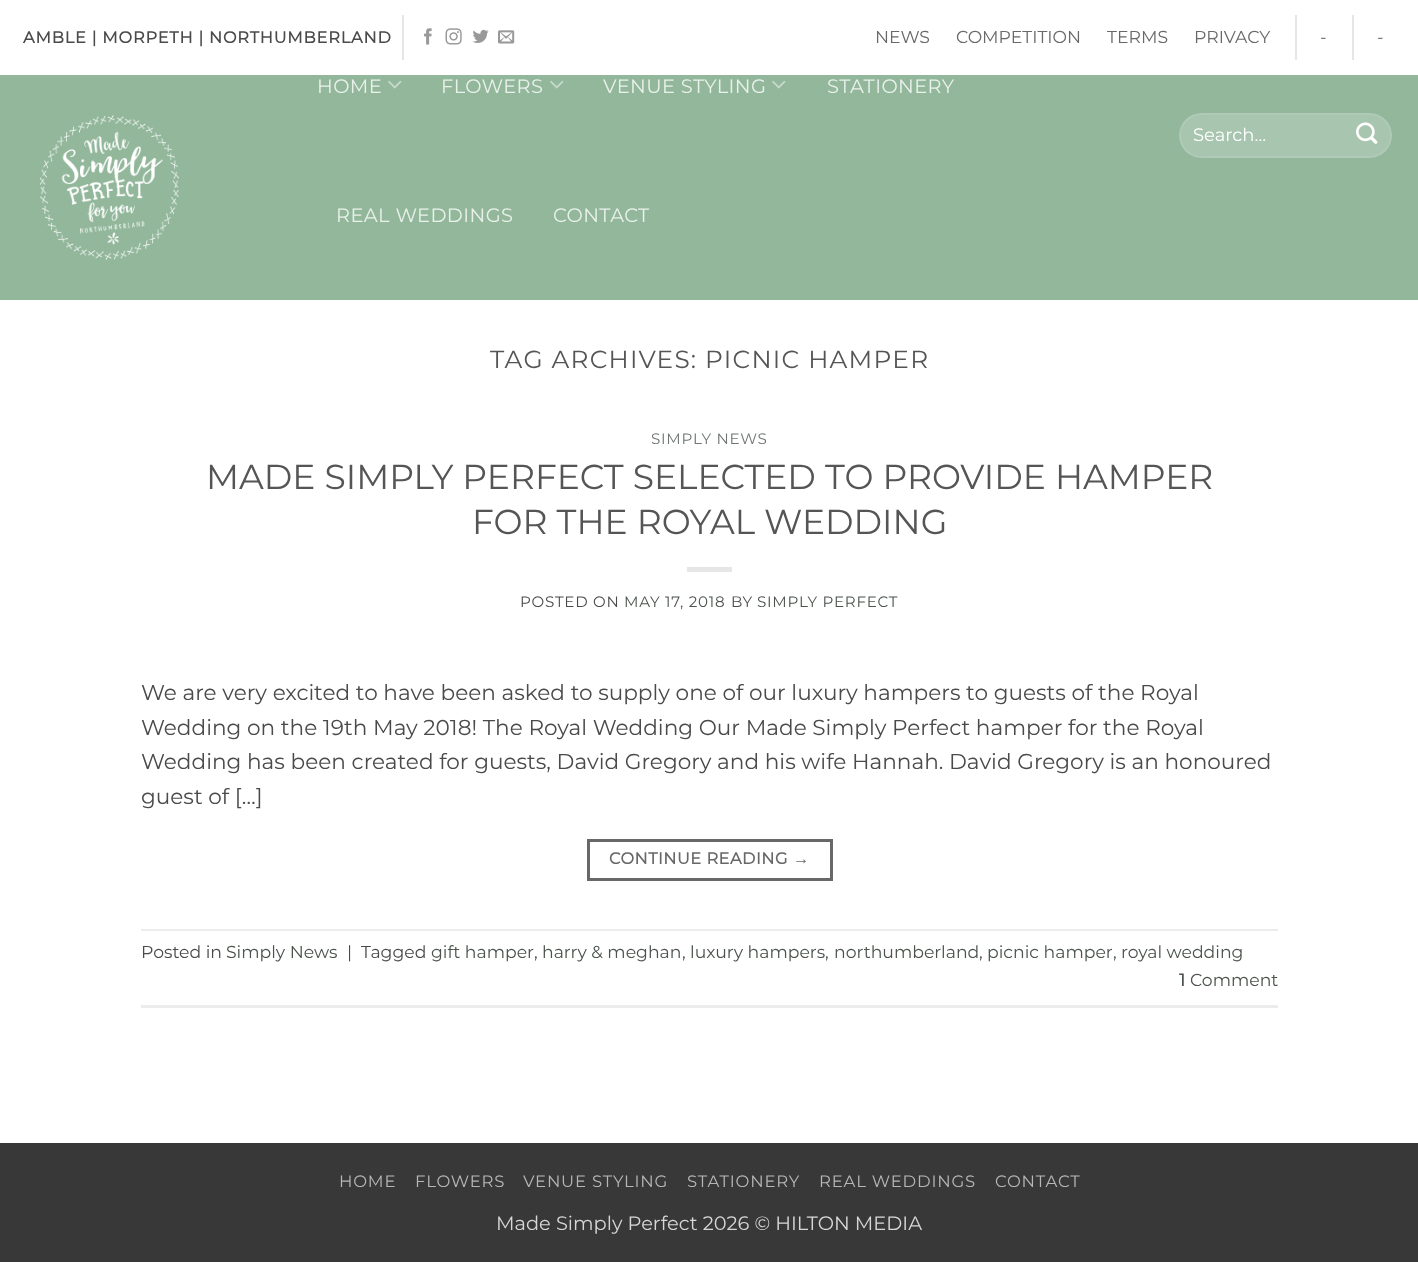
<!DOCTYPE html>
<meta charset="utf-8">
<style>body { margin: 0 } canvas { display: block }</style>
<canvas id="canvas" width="1418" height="1262"></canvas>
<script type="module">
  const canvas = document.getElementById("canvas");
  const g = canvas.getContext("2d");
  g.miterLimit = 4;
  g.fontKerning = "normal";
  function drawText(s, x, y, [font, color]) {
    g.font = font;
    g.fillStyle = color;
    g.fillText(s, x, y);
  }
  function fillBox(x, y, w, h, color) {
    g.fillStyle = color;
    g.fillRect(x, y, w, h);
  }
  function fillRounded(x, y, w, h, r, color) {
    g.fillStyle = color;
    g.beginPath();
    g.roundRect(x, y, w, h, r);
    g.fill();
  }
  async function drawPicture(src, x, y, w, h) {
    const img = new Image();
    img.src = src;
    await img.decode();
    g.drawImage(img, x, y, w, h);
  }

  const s1 = ["bold 16.2px Montserrat", "#4A4A4A"];
  const s2 = ["100 17.25px Montserrat", "#686868"];
  const s3 = ["100 19.4px Montserrat", "#E9F1EB"];
  const s4 = ["100 18px Montserrat", "#FFFFFF"];
  const s5 = ["100 24.8px Montserrat", "#555555"];
  const s6 = ["100 15.1px Montserrat", "#6F7570"];
  const s7 = ["100 34.55px Montserrat", "#555555"];
  const s8 = ["100 15.1px Montserrat", "#4A4A4A"];
  const s9 = ["100 15.1px Montserrat", "#4B534C"];
  const s10 = ["100 21.6px Montserrat", "#4A4A4A"];
  const s11 = ["bold 16.2px Montserrat", "#686868"];
  const s12 = ["bold 16.2px Liberation Sans", "#686868"];
  const s13 = ["100 17.25px Montserrat", "#4A4A4A"];
  const s14 = ["100 17.25px Montserrat", "#4B534C"];
  const s15 = ["bold 17.25px Montserrat", "#4B534C"];
  const s16 = ["100 16.5px Montserrat", "#B7B7B7"];
  const s17 = ["100 19.4px Montserrat", "#D7D7D7"];

  fillBox(0, 0, 1418, 1262, "#FFFFFF");
  g.letterSpacing = "0.8px";
  drawText("AMBLE | MORPETH | NORTHUMBERLAND", 23, 43, s1);
  fillBox(402, 15, 2, 45, "#E6E6E6");
  await drawPicture("pic1.png", 424, 28, 8, 17);
  await drawPicture("pic2.png", 445, 28, 17, 17);
  await drawPicture("pic3.png", 472, 29, 17, 14);
  await drawPicture("pic4.png", 498, 30, 17, 14);
  g.letterSpacing = "0px";
  drawText("NEWS", 875, 43, s2);
  drawText("COMPETITION", 956, 43, s2);
  drawText("TERMS", 1107, 43, s2);
  drawText("PRIVACY", 1194, 43, s2);
  fillBox(1295, 15, 2, 45, "#E6E6E6");
  drawText("-", 1320, 43, s2);
  fillBox(1352, 15, 2, 45, "#E6E6E6");
  drawText("-", 1377, 43, s2);
  fillBox(0, 75, 1418, 225, "#92B79B");
  await drawPicture("pic5.png", 39, 115, 141, 145);
  g.letterSpacing = "0.4px";
  drawText("HOME", 317, 93, s3);
  await drawPicture("pic6.png", 388, 80, 14, 9);
  drawText("FLOWERS", 441, 93, s3);
  await drawPicture("pic6.png", 550, 80, 14, 9);
  drawText("VENUE STYLING", 603, 93, s3);
  await drawPicture("pic6.png", 772, 80, 14, 9);
  drawText("STATIONERY", 827, 93, s3);
  drawText("REAL WEDDINGS", 336, 222, s3);
  drawText("CONTACT", 553, 222, s3);
  fillRounded(1179, 113, 213, 45, 22.5, "#A8C5AF");
  g.beginPath();
  g.roundRect(1180, 114, 211, 43, 21.5);
  g.strokeStyle = "rgba(255, 255, 255, 0.09)";
  g.lineWidth = 2;
  g.stroke();
  g.letterSpacing = "0px";
  drawText("Search…", 1193, 141, s4);
  await drawPicture("pic7.png", 1356, 122, 22, 22);
  g.letterSpacing = "1.25px";
  drawText("TAG ARCHIVES: PICNIC HAMPER", 490, 368, s5);
  g.letterSpacing = "0.75px";
  drawText("SIMPLY NEWS", 651, 444, s6);
  g.letterSpacing = "0px";
  drawText("MADE SIMPLY PERFECT SELECTED TO PROVIDE HAMPER", 206, 489, s7);
  drawText("FOR THE ROYAL WEDDING", 472, 534, s7);
  fillBox(687, 567, 45, 5, "#E6E6E6");
  g.letterSpacing = "0.75px";
  drawText("POSTED ON", 520, 607, s8);
  drawText("MAY 17, 2018", 624, 607, s9);
  drawText("BY", 731, 607, s8);
  drawText("SIMPLY PERFECT", 757, 607, s9);
  g.letterSpacing = "0px";
  drawText("We are very excited to have been asked to supply one of our luxury hampers to guests of the Royal", 141, 700, s10);
  drawText("Wedding on the 19th May 2018! The Royal Wedding Our Made Simply Perfect hamper for the Royal", 141, 735, s10);
  drawText("Wedding has been created for guests, David Gregory and his wife Hannah. David Gregory is an honoured", 141, 769, s10);
  drawText("guest of […]", 141, 804, s10);
  g.strokeStyle = "#686868";
  g.lineWidth = 3;
  g.strokeRect(588.5, 840.5, 243, 39);
  g.letterSpacing = "0.5px";
  drawText("CONTINUE READING", 609, 864, s11);
  drawText("→", 793, 864, s12);
  fillBox(141, 929, 1137, 2, "#ECECEC");
  fillBox(141, 1005, 1137, 3, "#ECECEC");
  g.letterSpacing = "0px";
  drawText("Posted in", 141, 958, s13);
  drawText("Simply News", 226, 958, s14);
  drawText("|", 347, 958, s13);
  drawText("Tagged", 361, 958, s13);
  drawText("gift hamper", 431, 958, s14);
  drawText(",", 534, 958, s13);
  drawText("harry & meghan", 542, 958, s14);
  drawText(",", 682, 958, s13);
  drawText("luxury hampers", 690, 958, s14);
  drawText(",", 825, 958, s13);
  drawText("northumberland", 834, 958, s14);
  drawText(",", 979, 958, s13);
  drawText("picnic hamper", 987, 958, s14);
  drawText(",", 1113, 958, s13);
  drawText("royal wedding", 1121, 958, s14);
  drawText("1", 1179, 986, s15);
  drawText("Comment", 1190, 986, s14);
  fillBox(0, 1143, 1418, 119, "#383838");
  g.letterSpacing = "0.8px";
  drawText("HOME", 339, 1187, s16);
  drawText("FLOWERS", 415, 1187, s16);
  drawText("VENUE STYLING", 523, 1187, s16);
  drawText("STATIONERY", 687, 1187, s16);
  drawText("REAL WEDDINGS", 819, 1187, s16);
  drawText("CONTACT", 995, 1187, s16);
  g.letterSpacing = "0px";
  drawText("Made Simply Perfect 2026 © HILTON MEDIA", 496, 1230, s17);
</script>
